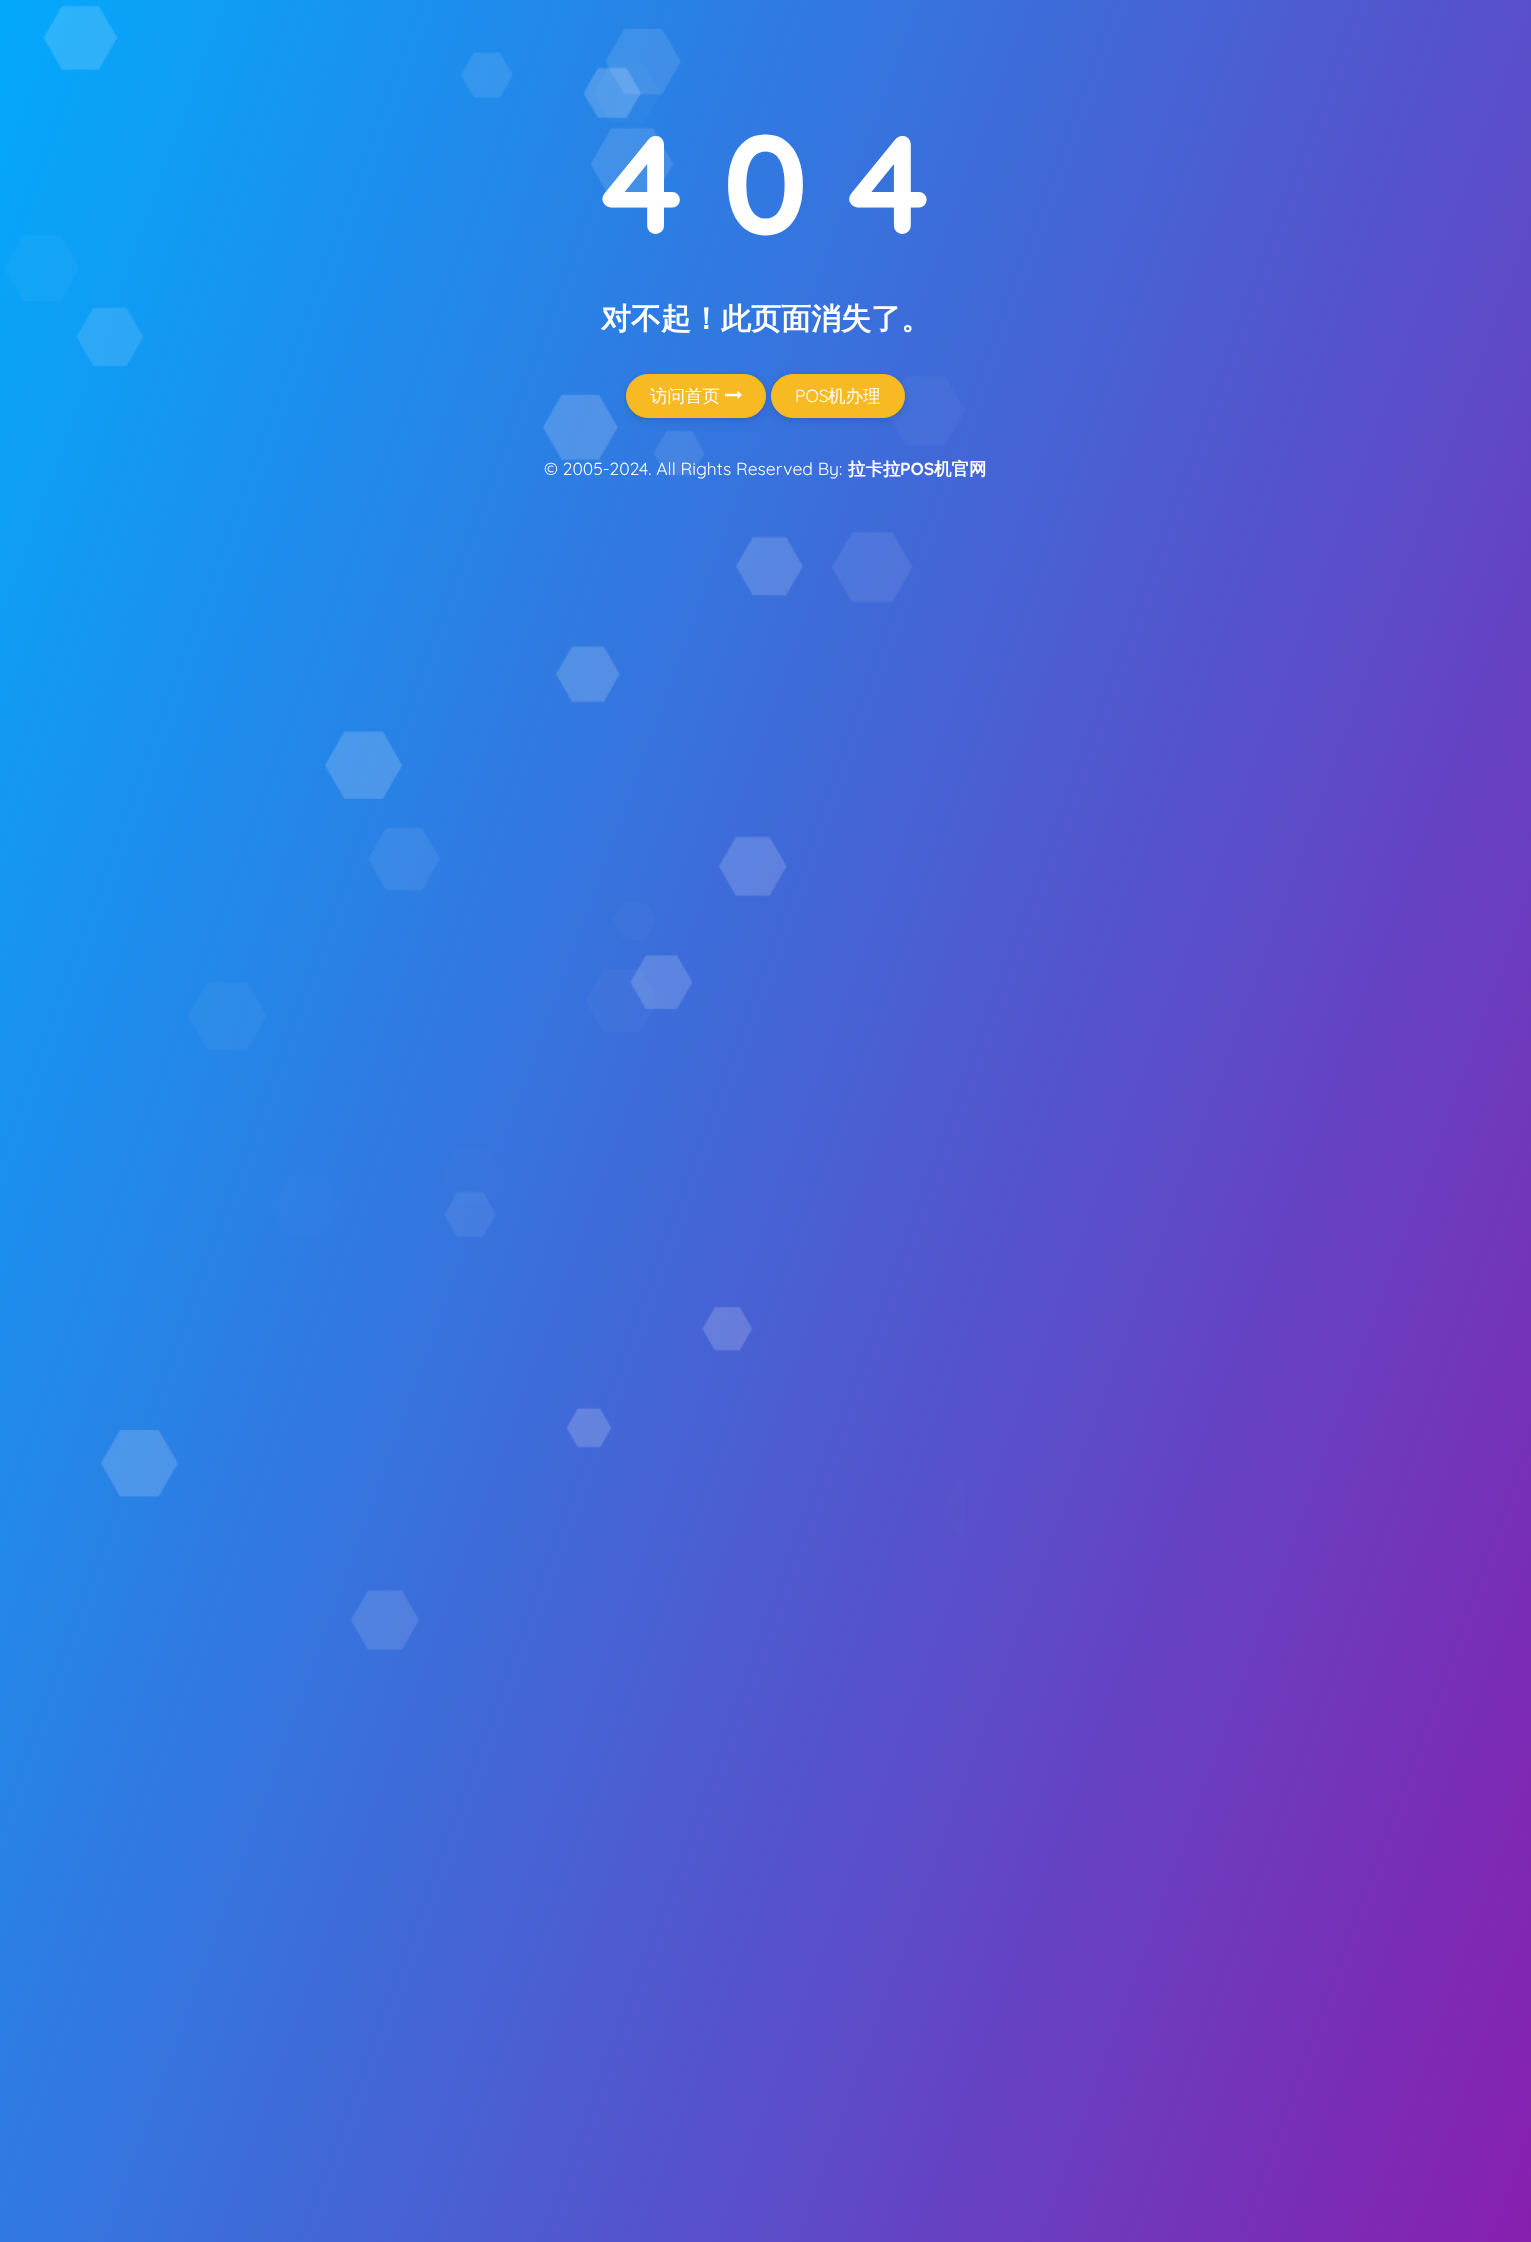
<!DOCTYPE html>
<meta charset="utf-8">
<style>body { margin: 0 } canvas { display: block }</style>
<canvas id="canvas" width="1531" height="2242"></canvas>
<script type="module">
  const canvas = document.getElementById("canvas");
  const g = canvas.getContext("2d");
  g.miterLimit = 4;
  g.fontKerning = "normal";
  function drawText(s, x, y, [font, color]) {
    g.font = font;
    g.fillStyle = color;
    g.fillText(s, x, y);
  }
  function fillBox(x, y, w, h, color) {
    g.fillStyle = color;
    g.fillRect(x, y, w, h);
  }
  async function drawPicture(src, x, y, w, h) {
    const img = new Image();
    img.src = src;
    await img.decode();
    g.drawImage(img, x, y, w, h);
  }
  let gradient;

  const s1 = ["bold 140px Quicksand", "#FFFFFF"];
  const s2 = ["bold 30px WenQuanYi Zen Hei", "#FFFFFF"];
  const s3 = ["500 17.5px WenQuanYi Zen Hei", "#FFFFFF"];
  const s4 = ["17.5px Quicksand", "#FFFFFF"];
  const s5 = ["bold 17.5px WenQuanYi Zen Hei", "#FFFFFF"];
  const s6 = ["bold 17.5px Quicksand", "#FFFFFF"];

  fillBox(0, 0, 1531, 2242, "#FFFFFF");
  gradient = g.createLinearGradient(-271, 744, 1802, 1498);
  gradient.addColorStop(0.01, "#04A8FB");
  gradient.addColorStop(1, "#871FAF");
  g.fillStyle = gradient;
  g.fillRect(0, 0, 1531, 2242);
  await drawPicture("pic1.png", 4, 5, 961, 1645);
  drawText("4 0 4", 601, 234, s1);
  drawText("对不起！此页面消失了。", 601, 329, s2);
  g.fillStyle = "rgba(0, 0, 0, 0.08)";
  g.filter = "blur(2px)";
  g.beginPath();
  g.roundRect(626, 375, 140, 44, 22);
  g.fill();
  g.filter = "none";
  g.fillStyle = "rgba(50, 50, 93, 0.11)";
  g.filter = "blur(4px)";
  g.beginPath();
  g.roundRect(626, 379, 140, 44, 22);
  g.fill();
  g.filter = "none";
  g.fillStyle = "#F7BA22";
  g.beginPath();
  g.roundRect(626.5, 374.5, 139, 43, 21.5);
  g.fill();
  g.strokeStyle = "#F7BA22";
  g.stroke();
  drawText("访问首页", 650, 402, s3);
  await drawPicture("pic2.png", 725, 391, 17, 8);
  g.fillStyle = "rgba(0, 0, 0, 0.08)";
  g.filter = "blur(2px)";
  g.beginPath();
  g.roundRect(771, 375, 134, 44, 22);
  g.fill();
  g.filter = "none";
  g.fillStyle = "rgba(50, 50, 93, 0.11)";
  g.filter = "blur(4px)";
  g.beginPath();
  g.roundRect(771, 379, 134, 44, 22);
  g.fill();
  g.filter = "none";
  g.fillStyle = "#F7BA22";
  g.beginPath();
  g.roundRect(771.5, 374.5, 133, 43, 21.5);
  g.fill();
  g.stroke();
  drawText("POS", 795, 402, s4);
  drawText("机办理", 828, 402, s3);
  drawText("© 2005-2024. All Rights Reserved By:", 544, 475, s4);
  drawText("拉卡拉", 848, 475, s5);
  drawText("POS", 900, 475, s6);
  drawText("机官网", 934, 475, s5);
</script>
